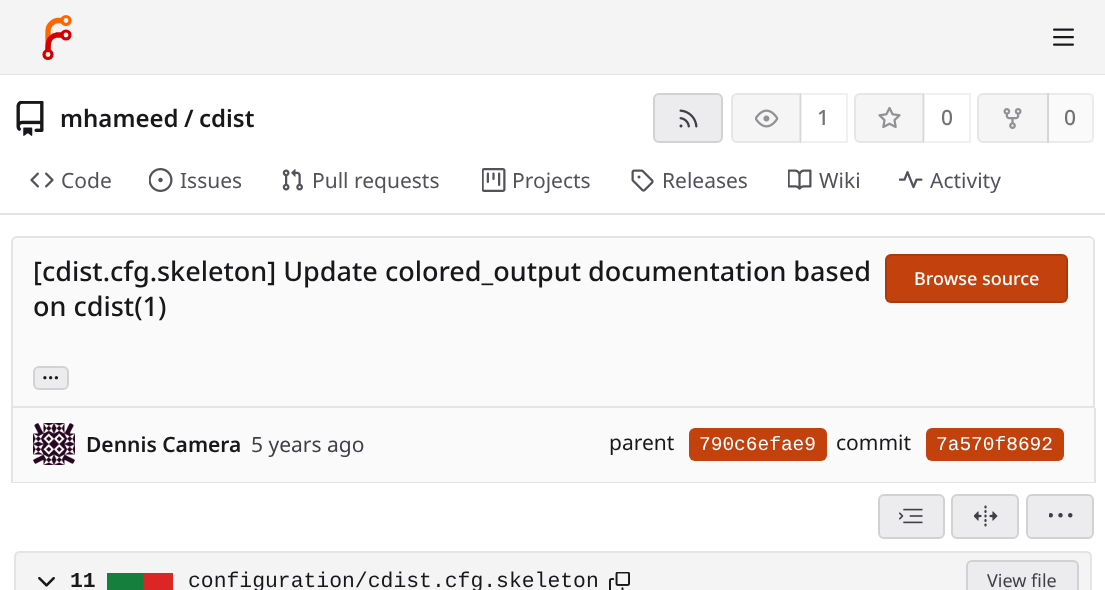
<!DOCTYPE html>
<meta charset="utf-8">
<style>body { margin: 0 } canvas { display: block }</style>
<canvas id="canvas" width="1105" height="590"></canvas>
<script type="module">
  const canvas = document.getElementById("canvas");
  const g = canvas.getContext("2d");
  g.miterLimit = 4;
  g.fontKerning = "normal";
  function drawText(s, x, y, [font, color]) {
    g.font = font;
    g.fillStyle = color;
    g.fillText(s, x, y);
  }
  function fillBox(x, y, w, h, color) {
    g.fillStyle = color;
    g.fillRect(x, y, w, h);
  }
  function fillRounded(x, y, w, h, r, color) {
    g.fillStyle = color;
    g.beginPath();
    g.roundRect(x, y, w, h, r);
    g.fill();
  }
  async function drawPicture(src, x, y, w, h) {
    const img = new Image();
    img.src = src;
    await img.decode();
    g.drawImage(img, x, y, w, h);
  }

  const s1 = ["600 24px Noto Sans", "#18181B"];
  const s2 = ["500 21px Noto Sans", "#737373"];
  const s3 = ["21px Noto Sans", "#52525B"];
  const s4 = ["500 27px Noto Sans", "#18181B"];
  const s5 = ["500 18px Noto Sans", "#FFFFFF"];
  const s6 = ["600 21px Noto Sans", "#18181B"];
  const s7 = ["21px Noto Sans", "#3F3F46"];
  const s8 = ["21px Noto Sans", "#18181B"];
  const s9 = ["19.5px Liberation Mono", "#FFFFFF"];
  const s10 = ["bold 21.4px Liberation Mono", "#18181B"];
  const s11 = ["21.4px Liberation Mono", "#18181B"];
  const s12 = ["18px Noto Sans", "#3F3F46"];

  fillBox(0, 0, 1105, 590, "#FFFFFF");
  fillBox(0, 0, 1105, 74, "#F4F4F5");
  fillBox(0, 74, 1105, 1, "#E4E4E7");
  g.beginPath();
  g.moveTo(48, 52);
  g.lineTo(48, 31);
  g.bezierCurveTo(48, 25.5, 53, 20.5, 58.5, 20.5);
  g.lineTo(63, 20.5);
  g.strokeStyle = "#FF6600";
  g.lineWidth = 5.3;
  g.stroke();
  g.beginPath();
  g.moveTo(48, 52);
  g.bezierCurveTo(48, 45, 47.5, 37, 56.5, 35);
  g.lineTo(63, 35);
  g.strokeStyle = "#D40000";
  g.stroke();
  g.beginPath();
  g.arc(66, 20.5, 4, 0, Math.PI * 2);
  g.strokeStyle = "#FF6600";
  g.lineWidth = 3.2;
  g.stroke();
  g.beginPath();
  g.arc(66, 35, 4, 0, Math.PI * 2);
  g.strokeStyle = "#D40000";
  g.stroke();
  g.beginPath();
  g.arc(48, 54.5, 4, 0, Math.PI * 2);
  g.stroke();
  await drawPicture("pic1.png", 1053, 28, 21, 18);
  await drawPicture("pic2.png", 16, 101, 28, 35);
  drawText("mhameed", 60, 127, s1);
  drawText("/", 184, 127, s1);
  drawText("cdist", 199, 127, s1);
  fillRounded(653, 93, 70, 50, 6, "#ECECEE");
  g.beginPath();
  g.roundRect(654, 94, 68, 48, 5);
  g.strokeStyle = "rgba(0, 0, 0, 0.11)";
  g.lineWidth = 2;
  g.stroke();
  await drawPicture("pic3.png", 679, 109, 19, 19);
  g.fillStyle = "#F5F5F6";
  g.beginPath();
  g.roundRect(732, 94, 68, 48, [5, 0, 0, 5]);
  g.fill();
  g.strokeStyle = "#E6E6E7";
  g.stroke();
  await drawPicture("pic4.png", 755, 109, 24, 19);
  g.strokeStyle = "rgba(0, 0, 0, 0.06)";
  g.strokeRect(801, 94, 46, 48);
  drawText("1", 817, 125, s2);
  g.fillStyle = "#F5F5F6";
  g.beginPath();
  g.roundRect(855, 94, 68, 48, [5, 0, 0, 5]);
  g.fill();
  g.strokeStyle = "#E6E6E7";
  g.stroke();
  await drawPicture("pic5.png", 878, 107, 23, 22);
  g.strokeStyle = "rgba(0, 0, 0, 0.06)";
  g.strokeRect(924, 94, 46, 48);
  drawText("0", 941, 125, s2);
  g.fillStyle = "#F5F5F6";
  g.beginPath();
  g.roundRect(978, 94, 70, 48, [5, 0, 0, 5]);
  g.fill();
  g.strokeStyle = "#E6E6E7";
  g.stroke();
  await drawPicture("pic6.png", 1003, 108, 19, 21);
  fillBox(1047, 93, 47, 50, "rgba(115, 115, 115, 0.04)");
  g.beginPath();
  g.roundRect(1048, 94, 45, 48, [0, 5, 5, 0]);
  g.strokeStyle = "rgba(115, 115, 115, 0.11)";
  g.stroke();
  drawText("0", 1064, 125, s2);
  await drawPicture("pic7.png", 30, 172, 24, 16);
  drawText("Code", 61, 188, s3);
  await drawPicture("pic8.png", 149, 168, 24, 24);
  drawText("Issues", 180, 188, s3);
  await drawPicture("pic9.png", 282, 169, 21, 22);
  drawText("Pull requests", 312, 188, s3);
  await drawPicture("pic10.png", 482, 168, 24, 24);
  drawText("Projects", 512, 188, s3);
  await drawPicture("pic11.png", 631, 169, 23, 23);
  drawText("Releases", 662, 188, s3);
  await drawPicture("pic12.png", 788, 169, 24, 21);
  drawText("Wiki", 819, 188, s3);
  await drawPicture("pic13.png", 899, 171, 24, 18);
  drawText("Activity", 930, 188, s3);
  fillBox(0, 213, 1105, 2, "#E4E4E7");
  g.fillStyle = "#FAFAFA";
  g.beginPath();
  g.roundRect(12, 237, 1082, 170, [5, 5, 0, 0]);
  g.fill();
  g.strokeStyle = "#E4E4E7";
  g.stroke();
  drawText("[cdist.cfg.skeleton] Update colored_output documentation based", 33, 281, s4);
  drawText("on cdist(1)", 33, 316, s4);
  fillRounded(885, 254, 183, 49, 6, "#C2410C");
  g.beginPath();
  g.roundRect(886, 255, 181, 47, 5);
  g.strokeStyle = "rgba(0, 0, 0, 0.11)";
  g.stroke();
  drawText("Browse source", 914, 285, s5);
  fillRounded(33, 366, 36, 24, 6, "#ECECEE");
  g.beginPath();
  g.roundRect(34, 367, 34, 22, 5);
  g.stroke();
  drawText("...", 42, 379, s6);
  fillBox(13, 408, 1081, 74, "#FAFAFA");
  fillBox(1094, 408, 2, 75, "#E4E4E7");
  fillBox(11, 482, 1084, 1, "#E4E4E7");
  fillBox(11, 408, 2, 75, "#E4E4E7");
  await drawPicture("pic14.png", 33, 423, 42, 42);
  drawText("Dennis Camera", 86, 452, s6);
  drawText("5 years ago", 251, 452, s7);
  drawText("parent", 609, 450, s8);
  fillRounded(689, 428, 138, 33, 6, "#C2410C");
  drawText("790c6efae9", 699, 450, s9);
  drawText("commit", 836, 450, s8);
  fillRounded(926, 428, 138, 33, 6, "#C2410C");
  drawText("7a570f8692", 936, 450, s9);
  fillRounded(878, 494, 67, 45, 6, "#ECECEE");
  g.beginPath();
  g.roundRect(879, 495, 65, 43, 5);
  g.stroke();
  await drawPicture("pic15.png", 899, 508, 24, 16);
  fillRounded(951, 494, 68, 45, 6, "#ECECEE");
  g.beginPath();
  g.roundRect(952, 495, 66, 43, 5);
  g.stroke();
  await drawPicture("pic16.png", 974, 505, 24, 22);
  fillRounded(1026, 494, 68, 45, 6, "#ECECEE");
  g.beginPath();
  g.roundRect(1027, 495, 66, 43, 5);
  g.stroke();
  await drawPicture("pic17.png", 1049, 513, 24, 5);
  g.fillStyle = "#F4F4F5";
  g.beginPath();
  g.moveTo(20, 552);
  g.lineTo(1086, 552);
  g.bezierCurveTo(1089, 552, 1091, 554, 1091, 557);
  g.lineTo(1091, 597);
  g.lineTo(15, 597);
  g.lineTo(15, 557);
  g.bezierCurveTo(15, 554, 17, 552, 20, 552);
  g.closePath();
  g.fill();
  g.strokeStyle = "#E4E4E7";
  g.stroke();
  await drawPicture("pic18.png", 38, 577, 17, 10);
  drawText("11", 70, 587, s10);
  fillBox(143, 573, 30, 17, "#DC2626");
  fillBox(107, 573, 36, 17, "#15803D");
  drawText("configuration/cdist.cfg.skeleton", 188, 587, s11);
  await drawPicture("pic19.png", 609, 572, 21, 18);
  g.fillStyle = "#ECECEE";
  g.beginPath();
  g.roundRect(967, 561, 111, 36, 5);
  g.fill();
  g.strokeStyle = "#D1D1D3";
  g.stroke();
  drawText("View file", 987, 587, s12);
</script>
